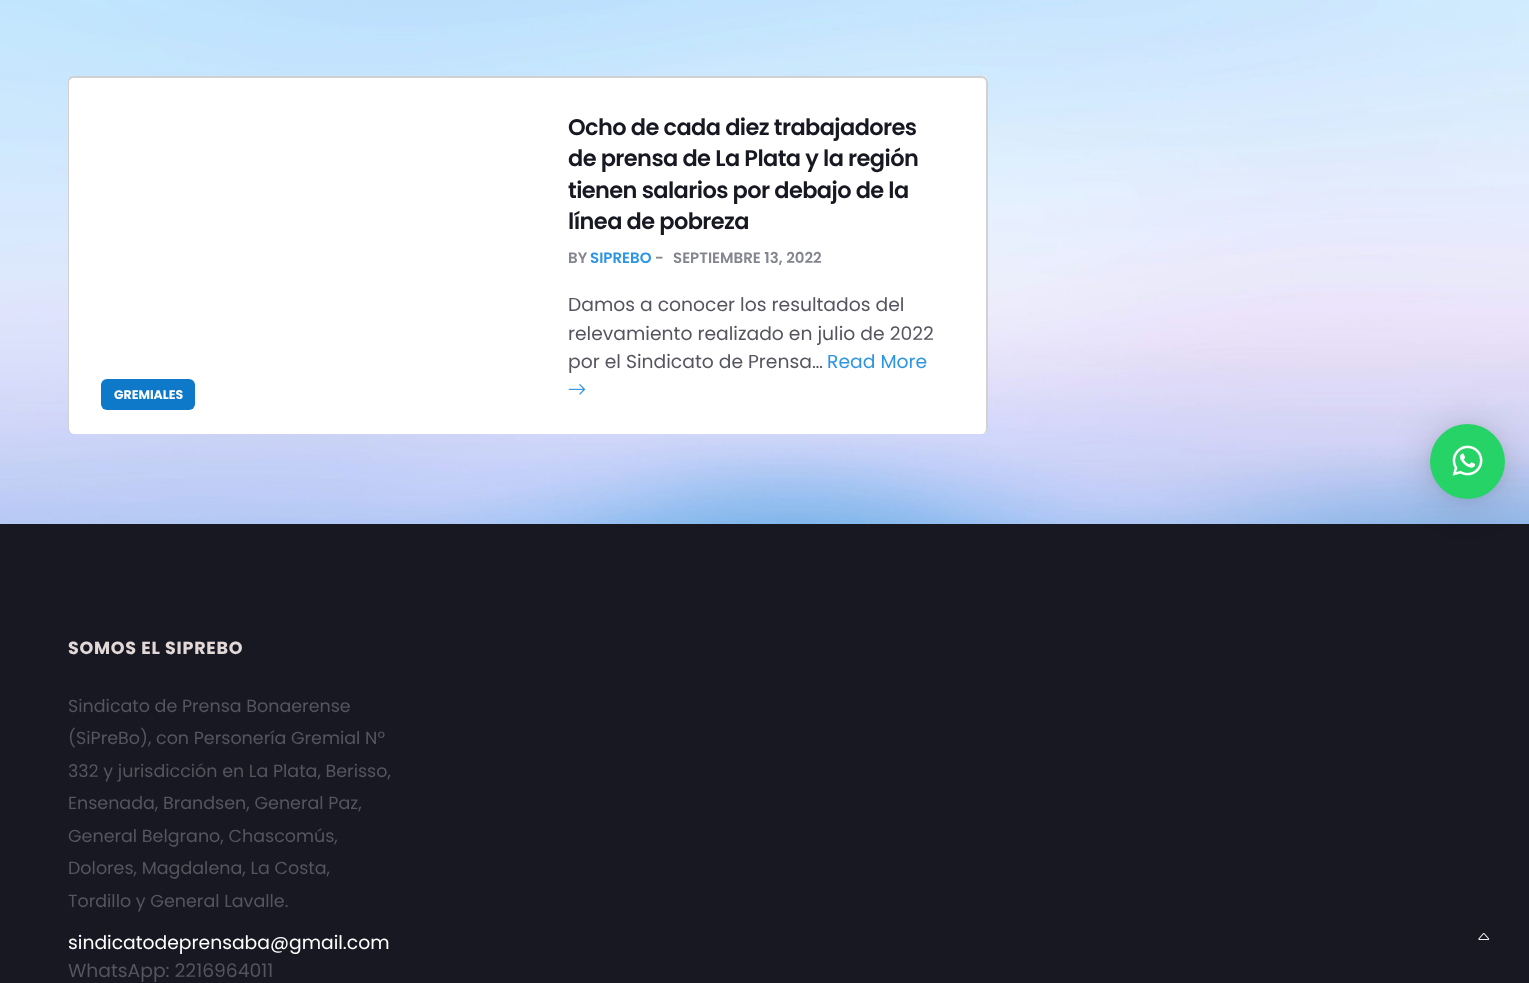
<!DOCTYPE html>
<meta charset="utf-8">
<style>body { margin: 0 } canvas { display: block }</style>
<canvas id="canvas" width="1529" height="983"></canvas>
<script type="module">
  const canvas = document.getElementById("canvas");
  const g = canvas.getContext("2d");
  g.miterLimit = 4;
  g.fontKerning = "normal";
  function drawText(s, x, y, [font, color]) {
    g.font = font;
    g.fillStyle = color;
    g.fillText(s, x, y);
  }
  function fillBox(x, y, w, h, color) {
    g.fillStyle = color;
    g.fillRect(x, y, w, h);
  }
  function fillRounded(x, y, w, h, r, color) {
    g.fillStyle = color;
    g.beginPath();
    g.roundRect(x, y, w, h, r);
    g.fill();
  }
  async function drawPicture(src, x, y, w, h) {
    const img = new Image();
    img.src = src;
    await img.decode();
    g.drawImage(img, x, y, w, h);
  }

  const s1 = ["600 22.5px Poppins", "#171821"];
  const s2 = ["600 15px Poppins", "#83858F"];
  const s3 = ["600 15px Poppins", "#2D95E3"];
  const s4 = ["18.75px Poppins", "#54555E"];
  const s5 = ["18.75px Poppins", "#2D95E3"];
  const s6 = ["bold 12.5px Poppins", "#FFFFFF"];
  const s7 = ["bold 17.5px Poppins", "#E2D8D8"];
  const s8 = ["17.5px Poppins", "#54555E"];
  const s9 = ["18.75px Poppins", "#FFFFFF"];

  fillBox(0, 0, 1529, 983, "#FFFFFF");
  await drawPicture("pic1.png", 0, 0, 1529, 524);
  fillRounded(68, 76, 920, 358, 6, "#FFFFFF");
  g.fillStyle = "rgba(0, 0, 0, 0.18)";
  g.beginPath();
  g.moveTo(74, 76);
  g.lineTo(981, 76);
  g.bezierCurveTo(985, 76, 988, 79, 988, 82);
  g.lineTo(988, 428);
  g.bezierCurveTo(988, 431, 985, 434, 981, 434);
  g.lineTo(74, 434);
  g.bezierCurveTo(70, 434, 68, 431, 68, 428);
  g.lineTo(68, 82);
  g.bezierCurveTo(68, 79, 70, 76, 74, 76);
  g.closePath();
  g.moveTo(74, 78);
  g.lineTo(981, 78);
  g.bezierCurveTo(984, 78, 986, 80, 986, 82);
  g.lineTo(986, 428);
  g.bezierCurveTo(986, 431, 984, 434, 981, 434);
  g.lineTo(74, 434);
  g.bezierCurveTo(71, 434, 69, 431, 69, 428);
  g.lineTo(69, 82);
  g.bezierCurveTo(69, 80, 71, 78, 74, 78);
  g.closePath();
  g.fill("evenodd");
  g.fillStyle = "#FFFFFF";
  g.beginPath();
  g.moveTo(534, 78);
  g.lineTo(980, 78);
  g.bezierCurveTo(983, 78, 986, 81, 986, 84);
  g.lineTo(986, 428);
  g.bezierCurveTo(986, 431, 984, 433, 982, 434);
  g.lineTo(532, 434);
  g.bezierCurveTo(530, 433, 528, 431, 528, 428);
  g.lineTo(528, 84);
  g.bezierCurveTo(528, 81, 531, 78, 534, 78);
  g.closePath();
  g.fill();
  g.letterSpacing = "-0.6px";
  drawText("Ocho de cada diez trabajadores", 568, 135, s1);
  drawText("de prensa de La Plata y la región", 568, 166, s1);
  drawText("tienen salarios por debajo de la", 568, 198, s1);
  drawText("línea de pobreza", 568, 229, s1);
  g.letterSpacing = "0px";
  drawText("BY", 568, 263, s2);
  drawText("SIPREBO", 590, 263, s3);
  drawText("-", 655, 263, s2);
  drawText("SEPTIEMBRE 13, 2022", 673, 263, s2);
  drawText("Damos a conocer los resultados del", 568, 311, s4);
  drawText("relevamiento realizado en julio de 2022", 568, 340, s4);
  drawText("por el Sindicato de Prensa…", 568, 368, s4);
  drawText("Read More", 827, 368, s5);
  await drawPicture("pic2.png", 568, 384, 17, 11);
  fillRounded(101, 379, 94, 31, 6, "#0E79C9");
  drawText("GREMIALES", 114, 399, s6);
  fillBox(0, 524, 1529, 459, "#171821");
  g.letterSpacing = "0.75px";
  drawText("SOMOS EL SIPREBO", 68, 654, s7);
  g.letterSpacing = "0px";
  drawText("Sindicato de Prensa Bonaerense", 68, 712, s8);
  drawText("(SiPreBo), con Personería Gremial Nº", 68, 744, s8);
  drawText("332 y jurisdicción en La Plata, Berisso,", 68, 777, s8);
  drawText("Ensenada, Brandsen, General Paz,", 68, 809, s8);
  drawText("General Belgrano, Chascomús,", 68, 842, s8);
  drawText("Dolores, Magdalena, La Costa,", 68, 874, s8);
  drawText("Tordillo y General Lavalle.", 68, 907, s8);
  drawText("sindicatodeprensaba@gmail.com", 68, 949, s9);
  drawText("WhatsApp: 2216964011", 68, 977, s4);
  await drawPicture("pic3.png", 1478, 933, 12, 7);
  g.fillStyle = "rgba(0, 0, 0, 0.16)";
  g.filter = "blur(20px)";
  g.beginPath();
  g.roundRect(1430, 426, 75, 75, 37.5);
  g.fill();
  g.filter = "none";
  g.fillStyle = "rgba(0, 0, 0, 0.06)";
  g.filter = "blur(4px)";
  g.beginPath();
  g.roundRect(1430, 425, 75, 75, 37.5);
  g.fill();
  g.filter = "none";
  g.fillStyle = "#25D366";
  g.beginPath();
  g.arc(1467.5, 461.5, 37.5, 0, Math.PI * 2);
  g.fill();
  await drawPicture("pic4.png", 1452, 445, 31, 31);
</script>
